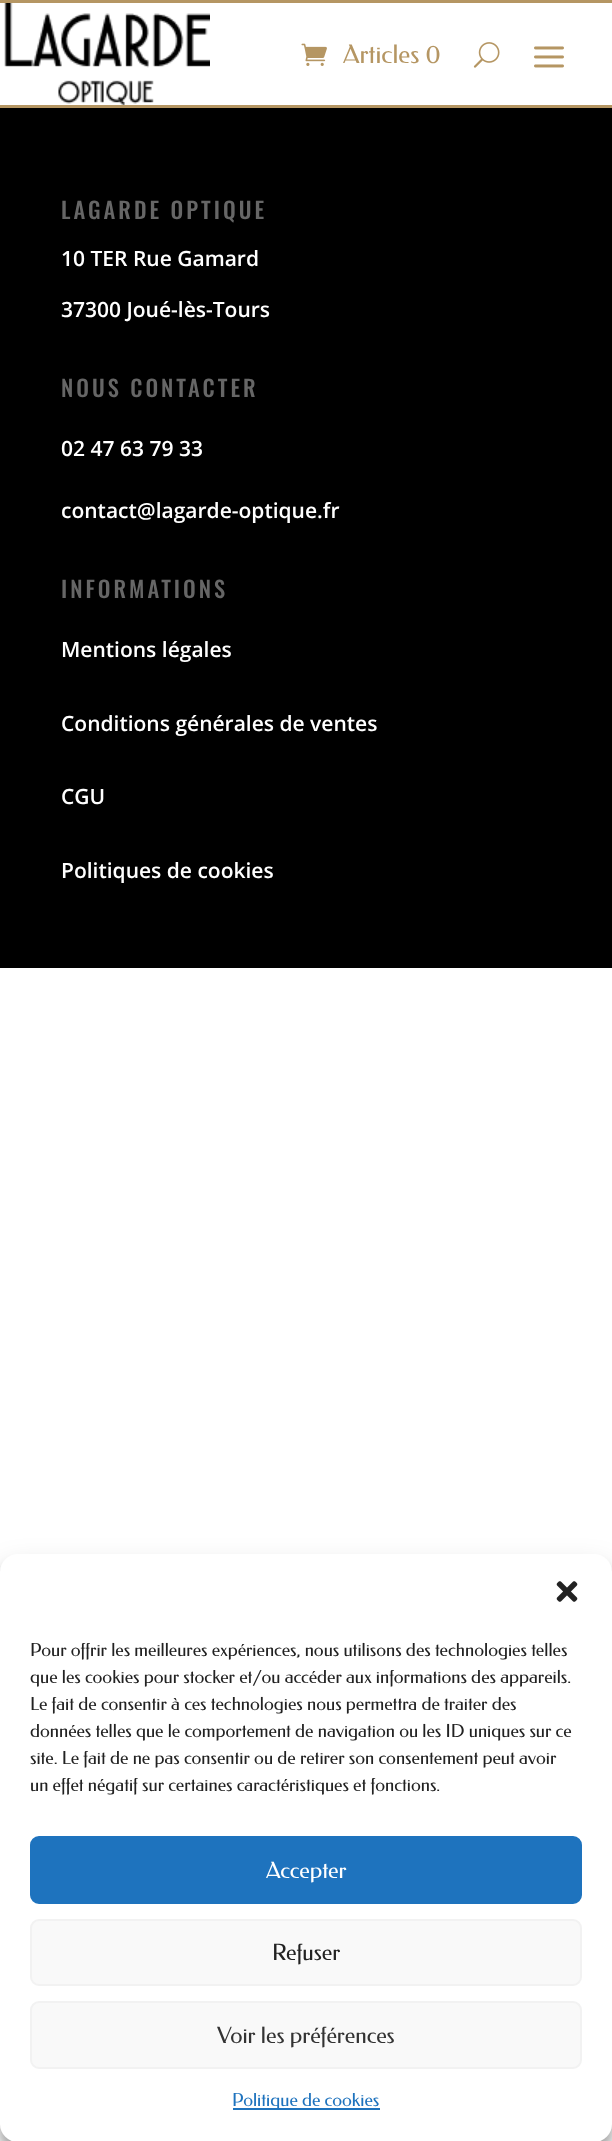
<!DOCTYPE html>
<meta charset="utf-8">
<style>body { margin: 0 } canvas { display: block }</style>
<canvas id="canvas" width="612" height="2141"></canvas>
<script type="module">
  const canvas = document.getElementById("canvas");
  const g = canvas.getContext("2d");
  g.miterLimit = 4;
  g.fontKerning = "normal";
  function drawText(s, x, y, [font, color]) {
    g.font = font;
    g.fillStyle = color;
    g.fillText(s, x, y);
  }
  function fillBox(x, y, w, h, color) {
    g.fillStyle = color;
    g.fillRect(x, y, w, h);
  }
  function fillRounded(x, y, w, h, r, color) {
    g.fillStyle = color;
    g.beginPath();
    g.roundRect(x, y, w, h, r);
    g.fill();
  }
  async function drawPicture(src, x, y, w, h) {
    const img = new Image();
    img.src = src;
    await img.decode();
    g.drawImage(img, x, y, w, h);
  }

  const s1 = ["25.5px Federo", "#B59663"];
  const s2 = ["500 22.5px Oswald", "#666666"];
  const s3 = ["600 21px Open Sans", "#FFFFFF"];
  const s4 = ["18px Federo", "#222222"];
  const s5 = ["22.5px Federo", "#FFFFFF"];
  const s6 = ["22.5px Federo", "#222222"];
  const s7 = ["22.5px Federo", "#333333"];
  const s8 = ["18px Federo", "#1E73BE"];

  fillBox(0, 0, 612, 2141, "#FFFFFF");
  fillBox(0, 0, 612, 3, "#B59663");
  fillBox(0, 105, 612, 3, "#B59663");
  await drawPicture("pic1.png", 4, 3, 206, 102);
  await drawPicture("pic2.png", 301, 43, 26, 23);
  drawText("Articles 0", 343, 63, s1);
  await drawPicture("pic3.png", 473, 42, 27, 26);
  await drawPicture("pic4.png", 534, 46, 30, 22);
  fillBox(0, 108, 612, 860, "#000000");
  g.letterSpacing = "3px";
  drawText("LAGARDE OPTIQUE", 61, 219, s2);
  g.letterSpacing = "0px";
  drawText("10 TER Rue Gamard", 61, 266, s3);
  drawText("37300 Joué-lès-Tours", 61, 317, s3);
  g.letterSpacing = "3px";
  drawText("NOUS CONTACTER", 61, 397, s2);
  g.letterSpacing = "0px";
  drawText("02 47 63 79 33", 61, 456, s3);
  drawText("contact@lagarde-optique.fr", 61, 518, s3);
  g.letterSpacing = "3px";
  drawText("INFORMATIONS", 61, 598, s2);
  g.letterSpacing = "0px";
  drawText("Mentions légales", 61, 657, s3);
  drawText("Conditions générales de ventes", 61, 731, s3);
  drawText("CGU", 61, 804, s3);
  drawText("Politiques de cookies", 61, 878, s3);
  g.fillStyle = "rgba(0, 0, 0, 0.23)";
  g.filter = "blur(4.5px)";
  g.beginPath();
  g.roundRect(0, 1563, 612, 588, 18);
  g.fill();
  g.filter = "none";
  g.fillStyle = "rgba(0, 0, 0, 0.19)";
  g.filter = "blur(15px)";
  g.beginPath();
  g.roundRect(0, 1569, 612, 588, 18);
  g.fill();
  g.filter = "none";
  fillRounded(0, 1554, 612, 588, 18, "#FFFFFF");
  await drawPicture("pic5.png", 556, 1581, 22, 21);
  drawText("Pour offrir les meilleures expériences, nous utilisons des technologies telles", 30, 1656, s4);
  drawText("que les cookies pour stocker et/ou accéder aux informations des appareils.", 30, 1683, s4);
  drawText("Le fait de consentir à ces technologies nous permettra de traiter des", 30, 1710, s4);
  drawText("données telles que le comportement de navigation ou les ID uniques sur ce", 30, 1737, s4);
  drawText("site. Le fait de ne pas consentir ou de retirer son consentement peut avoir", 30, 1764, s4);
  drawText("un effet négatif sur certaines caractéristiques et fonctions.", 30, 1791, s4);
  g.fillStyle = "#1E73BE";
  g.beginPath();
  g.roundRect(31, 1837, 550, 66, 8);
  g.fill();
  g.strokeStyle = "#1E73BE";
  g.lineWidth = 2;
  g.stroke();
  drawText("Accepter", 266, 1878, s5);
  g.fillStyle = "#F9F9F9";
  g.beginPath();
  g.roundRect(31, 1920, 550, 65, 8);
  g.fill();
  g.strokeStyle = "#F2F2F2";
  g.stroke();
  drawText("Refuser", 272, 1960, s6);
  g.fillStyle = "#F9F9F9";
  g.beginPath();
  g.roundRect(31, 2002, 550, 66, 8);
  g.fill();
  g.stroke();
  drawText("Voir les préférences", 217, 2043, s7);
  fillBox(233, 2108, 147, 2, "#1E73BE");
  drawText("Politique de cookies", 232, 2106, s8);
</script>
